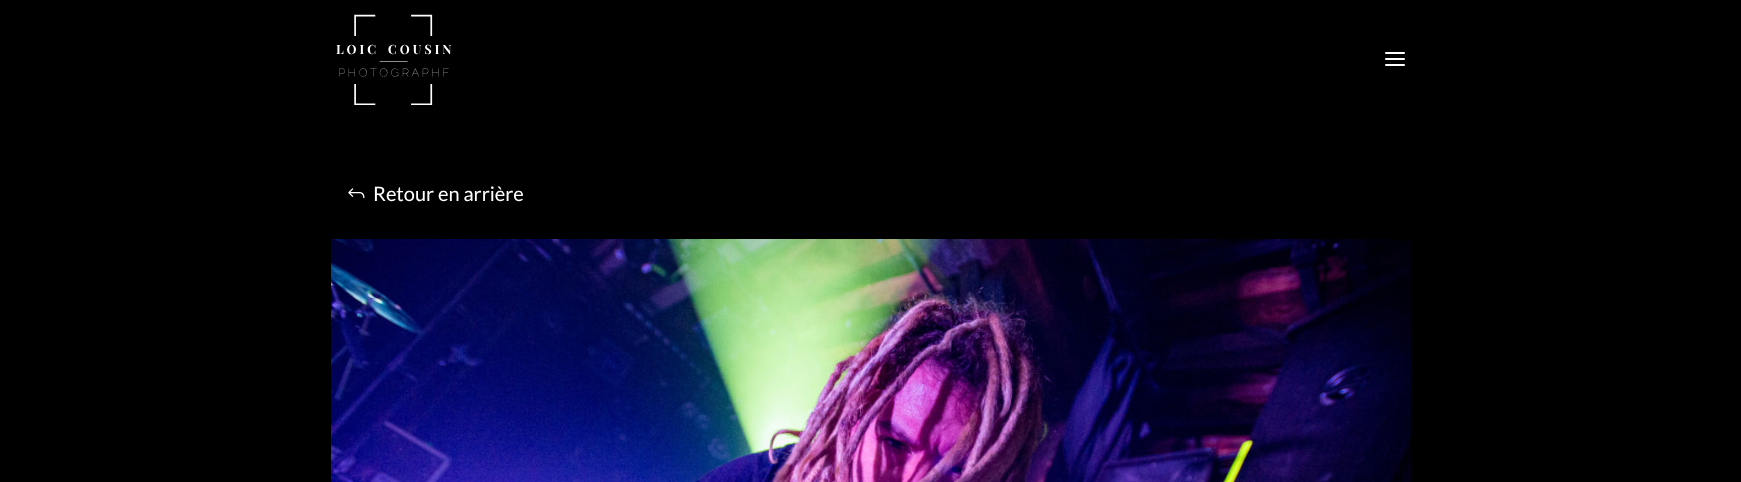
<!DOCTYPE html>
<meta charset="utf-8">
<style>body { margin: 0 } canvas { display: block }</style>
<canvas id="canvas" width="1741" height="482"></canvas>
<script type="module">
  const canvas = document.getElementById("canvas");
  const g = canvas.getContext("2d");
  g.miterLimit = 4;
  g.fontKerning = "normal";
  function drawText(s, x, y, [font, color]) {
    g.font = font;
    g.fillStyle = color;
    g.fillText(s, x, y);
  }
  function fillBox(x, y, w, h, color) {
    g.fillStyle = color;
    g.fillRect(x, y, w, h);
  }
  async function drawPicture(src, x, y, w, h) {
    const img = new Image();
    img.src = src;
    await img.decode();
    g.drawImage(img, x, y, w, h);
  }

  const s1 = ["20px Lato", "#FFFFFF"];

  fillBox(0, 0, 1741, 482, "#000000");
  await drawPicture("pic1.png", 336, 14, 115, 91);
  await drawPicture("pic2.png", 1385, 52, 20, 14);
  await drawPicture("pic3.png", 348, 188, 17, 11);
  drawText("Retour en arrière", 373, 201, s1);
  await drawPicture("pic4.png", 331, 239, 1080, 243);
</script>
